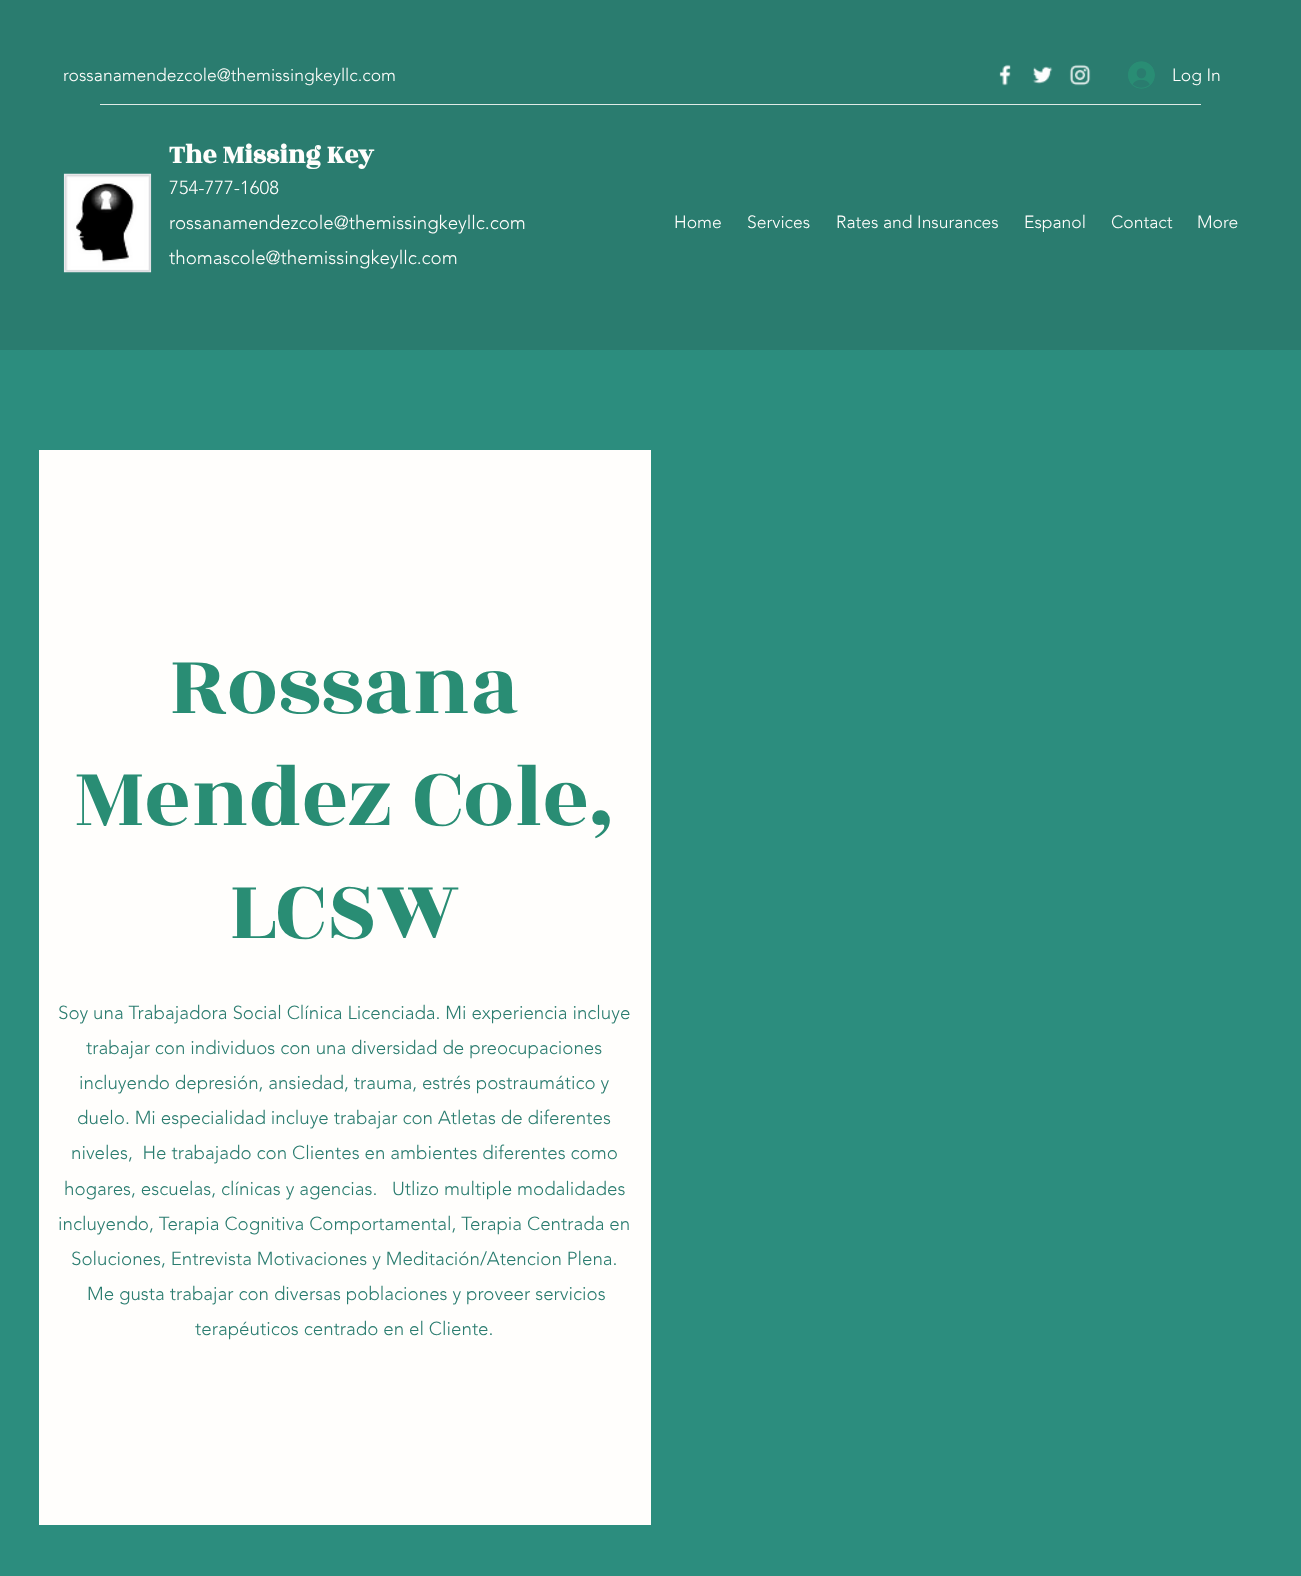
<!DOCTYPE html>
<meta charset="utf-8">
<style>body { margin: 0 } canvas { display: block }</style>
<canvas id="canvas" width="1301" height="1576"></canvas>
<script type="module">
  const canvas = document.getElementById("canvas");
  const g = canvas.getContext("2d");
  g.miterLimit = 4;
  g.fontKerning = "normal";
  function drawText(s, x, y, [font, color]) {
    g.font = font;
    g.fillStyle = color;
    g.fillText(s, x, y);
  }
  function fillBox(x, y, w, h, color) {
    g.fillStyle = color;
    g.fillRect(x, y, w, h);
  }
  async function drawPicture(src, x, y, w, h) {
    const img = new Image();
    img.src = src;
    await img.decode();
    g.drawImage(img, x, y, w, h);
  }

  const s1 = ["300 17.5px 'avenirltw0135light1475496'", "#FFFEFC"];
  const s2 = ["bold 27.5px Rozha One", "#FFFEFC"];
  const s3 = ["300 18.75px 'avenirltw0135light1475496'", "#FFFEFC"];
  const s4 = ["90px Rozha One", "#298D74"];
  const s5 = ["300 18.75px 'avenirltw0135light1475496'", "#2A7C6F"];

  fillBox(0, 0, 1301, 1576, "#2C8D7E");
  fillBox(0, 0, 1301, 350, "#2A7C6F");
  drawText("rossanamendezcole@themissingkeyllc.com", 63, 81, s1);
  await drawPicture("pic1.png", 999, 64, 12, 22);
  await drawPicture("pic2.png", 1032, 66, 21, 18);
  await drawPicture("pic3.png", 1069, 64, 22, 22);
  await drawPicture("pic4.png", 1128, 61, 27, 28);
  drawText("Log In", 1172, 81, s1);
  fillBox(100, 104, 1101, 1, "#DFEBE7");
  drawText("The Missing Key", 169, 163, s2);
  await drawPicture("pic5.png", 63, 173, 89, 100);
  drawText("754-777-1608", 169, 194, s3);
  drawText("rossanamendezcole@themissingkeyllc.com", 169, 229, s3);
  drawText("thomascole@themissingkeyllc.com", 169, 264, s3);
  drawText("Home", 674, 228, s1);
  drawText("Services", 747, 228, s1);
  drawText("Rates and Insurances", 836, 228, s1);
  drawText("Espanol", 1024, 228, s1);
  drawText("Contact", 1111, 228, s1);
  drawText("More", 1197, 228, s1);
  fillBox(39, 450, 612, 1075, "#FFFEFC");
  drawText("Rossana", 170, 713, s4);
  drawText("Mendez Cole,", 74, 825, s4);
  drawText("LCSW", 229, 938, s4);
  drawText("Soy una Trabajadora Social Clínica Licenciada. Mi experiencia incluye", 58, 1019, s5);
  drawText("trabajar con individuos con una diversidad de preocupaciones", 86, 1054, s5);
  drawText("incluyendo depresión, ansiedad, trauma, estrés postraumático y", 79, 1089, s5);
  drawText("duelo. Mi especialidad incluye trabajar con Atletas de diferentes", 77, 1124, s5);
  drawText("niveles,  He trabajado con Clientes en ambientes diferentes como", 71, 1159, s5);
  drawText("hogares, escuelas, clínicas y agencias.   Utlizo multiple modalidades", 64, 1195, s5);
  drawText("incluyendo, Terapia Cognitiva Comportamental, Terapia Centrada en", 58, 1230, s5);
  drawText("Soluciones, Entrevista Motivaciones y Meditación/Atencion Plena.", 71, 1265, s5);
  drawText("Me gusta trabajar con diversas poblaciones y proveer servicios", 87, 1300, s5);
  drawText("terapéuticos centrado en el Cliente.", 195, 1335, s5);
</script>
